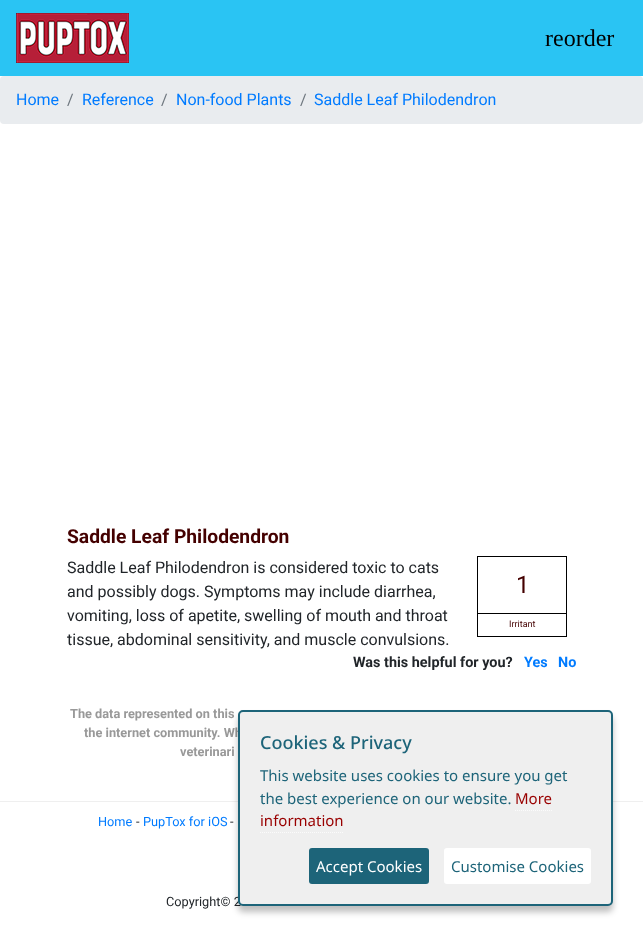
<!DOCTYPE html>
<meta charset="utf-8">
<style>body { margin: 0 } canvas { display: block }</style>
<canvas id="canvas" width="643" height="936"></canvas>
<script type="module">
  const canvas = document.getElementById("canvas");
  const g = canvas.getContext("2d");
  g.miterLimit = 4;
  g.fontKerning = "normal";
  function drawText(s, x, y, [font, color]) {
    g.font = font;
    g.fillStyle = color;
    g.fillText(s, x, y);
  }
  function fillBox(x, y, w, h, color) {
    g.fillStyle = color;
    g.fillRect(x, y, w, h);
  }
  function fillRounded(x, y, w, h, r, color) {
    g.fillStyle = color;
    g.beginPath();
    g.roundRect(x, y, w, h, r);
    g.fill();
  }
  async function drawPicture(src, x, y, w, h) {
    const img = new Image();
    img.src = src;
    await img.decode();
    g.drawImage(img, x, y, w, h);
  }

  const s1 = ["24px Liberation Serif", "#000000"];
  const s2 = ["16px Roboto", "#007BFF"];
  const s3 = ["16px Roboto", "#6C757D"];
  const s4 = ["bold 19.25px Roboto", "#440000"];
  const s5 = ["16px Roboto", "#212529"];
  const s6 = ["24px Roboto", "#440000"];
  const s7 = ["9px Roboto", "#440000"];
  const s8 = ["bold 14.4px Roboto", "#212529"];
  const s9 = ["bold 14.4px Roboto", "#007BFF"];
  const s10 = ["bold 12.75px Roboto", "#999999"];
  const s11 = ["12.75px Roboto", "#007BFF"];
  const s12 = ["12.75px Roboto", "#212529"];
  const s13 = ["500 18px Noto Sans", "#1D6479"];
  const s14 = ["15px Noto Sans", "#1D6479"];
  const s15 = ["15px Noto Sans", "#990000"];
  const s16 = ["15px Noto Sans", "#FFFFFF"];

  fillBox(0, 0, 643, 936, "#FFFFFF");
  fillBox(0, 0, 643, 76, "#2AC4F3");
  await drawPicture("pic1.png", 16, 13, 113, 50);
  drawText("reorder", 545, 46, s1);
  fillRounded(0, 76, 643, 48, 4, "#E9ECEF");
  drawText("Home", 16, 105, s2);
  drawText("/", 67, 105, s3);
  drawText("Reference", 82, 105, s2);
  drawText("/", 161, 105, s3);
  drawText("Non-food Plants", 176, 105, s2);
  drawText("/", 300, 105, s3);
  drawText("Saddle Leaf Philodendron", 314, 105, s2);
  drawText("Saddle Leaf Philodendron", 67, 543, s4);
  drawText("Saddle Leaf Philodendron is considered toxic to cats", 67, 573, s5);
  drawText("and possibly dogs. Symptoms may include diarrhea,", 67, 597, s5);
  g.strokeStyle = "#000000";
  g.strokeRect(477.5, 556.5, 89, 80);
  drawText("1", 516, 593, s6);
  fillBox(478, 613, 88, 1, "#000000");
  drawText("Irritant", 509, 627, s7);
  drawText("vomiting, loss of apetite, swelling of mouth and throat", 67, 621, s5);
  drawText("tissue, abdominal sensitivity, and muscle convulsions.", 67, 645, s5);
  drawText("Was this helpful for you?", 353, 667, s8);
  drawText("Yes", 524, 667, s9);
  drawText("No", 558, 667, s9);
  drawText("The data represented on this", 70, 718, s10);
  drawText("the internet community. Wh", 84, 737, s10);
  drawText("veterinari", 180, 756, s10);
  fillBox(0, 801, 643, 1, "#EFEFEF");
  drawText("Home", 98, 826, s11);
  drawText("-", 136, 826, s12);
  drawText("PupTox for iOS", 143, 826, s11);
  drawText("-", 230, 826, s12);
  drawText("Copyright© 2", 166, 906, s12);
  g.fillStyle = "rgba(0, 0, 0, 0.25)";
  g.filter = "blur(3px)";
  g.beginPath();
  g.roundRect(238, 716, 375, 196, 5);
  g.fill();
  g.filter = "none";
  g.fillStyle = "#EFEFEF";
  g.beginPath();
  g.roundRect(239, 711, 373, 194, 4);
  g.fill();
  g.strokeStyle = "#1D6479";
  g.lineWidth = 2;
  g.stroke();
  drawText("Cookies & Privacy", 260, 749, s13);
  drawText("This website uses cookies to ensure you get", 260, 781, s14);
  drawText("the best experience on our website.", 260, 804, s14);
  drawText("More", 515, 804, s15);
  g.beginPath();
  g.moveTo(515, 810.5);
  g.lineTo(552, 810.5);
  g.strokeStyle = "#FBFBFB";
  g.lineWidth = 1;
  g.setLineDash([1, 1]);
  g.stroke();
  drawText("information", 260, 826, s15);
  g.beginPath();
  g.moveTo(260, 832.5);
  g.lineTo(344, 832.5);
  g.stroke();
  fillRounded(309, 848, 120, 36, 3, "#1D6479");
  drawText("Accept Cookies", 316, 872, s16);
  fillRounded(444, 848, 147, 36, 3, "#FFFFFF");
  drawText("Customise Cookies", 451, 872, s14);
</script>
